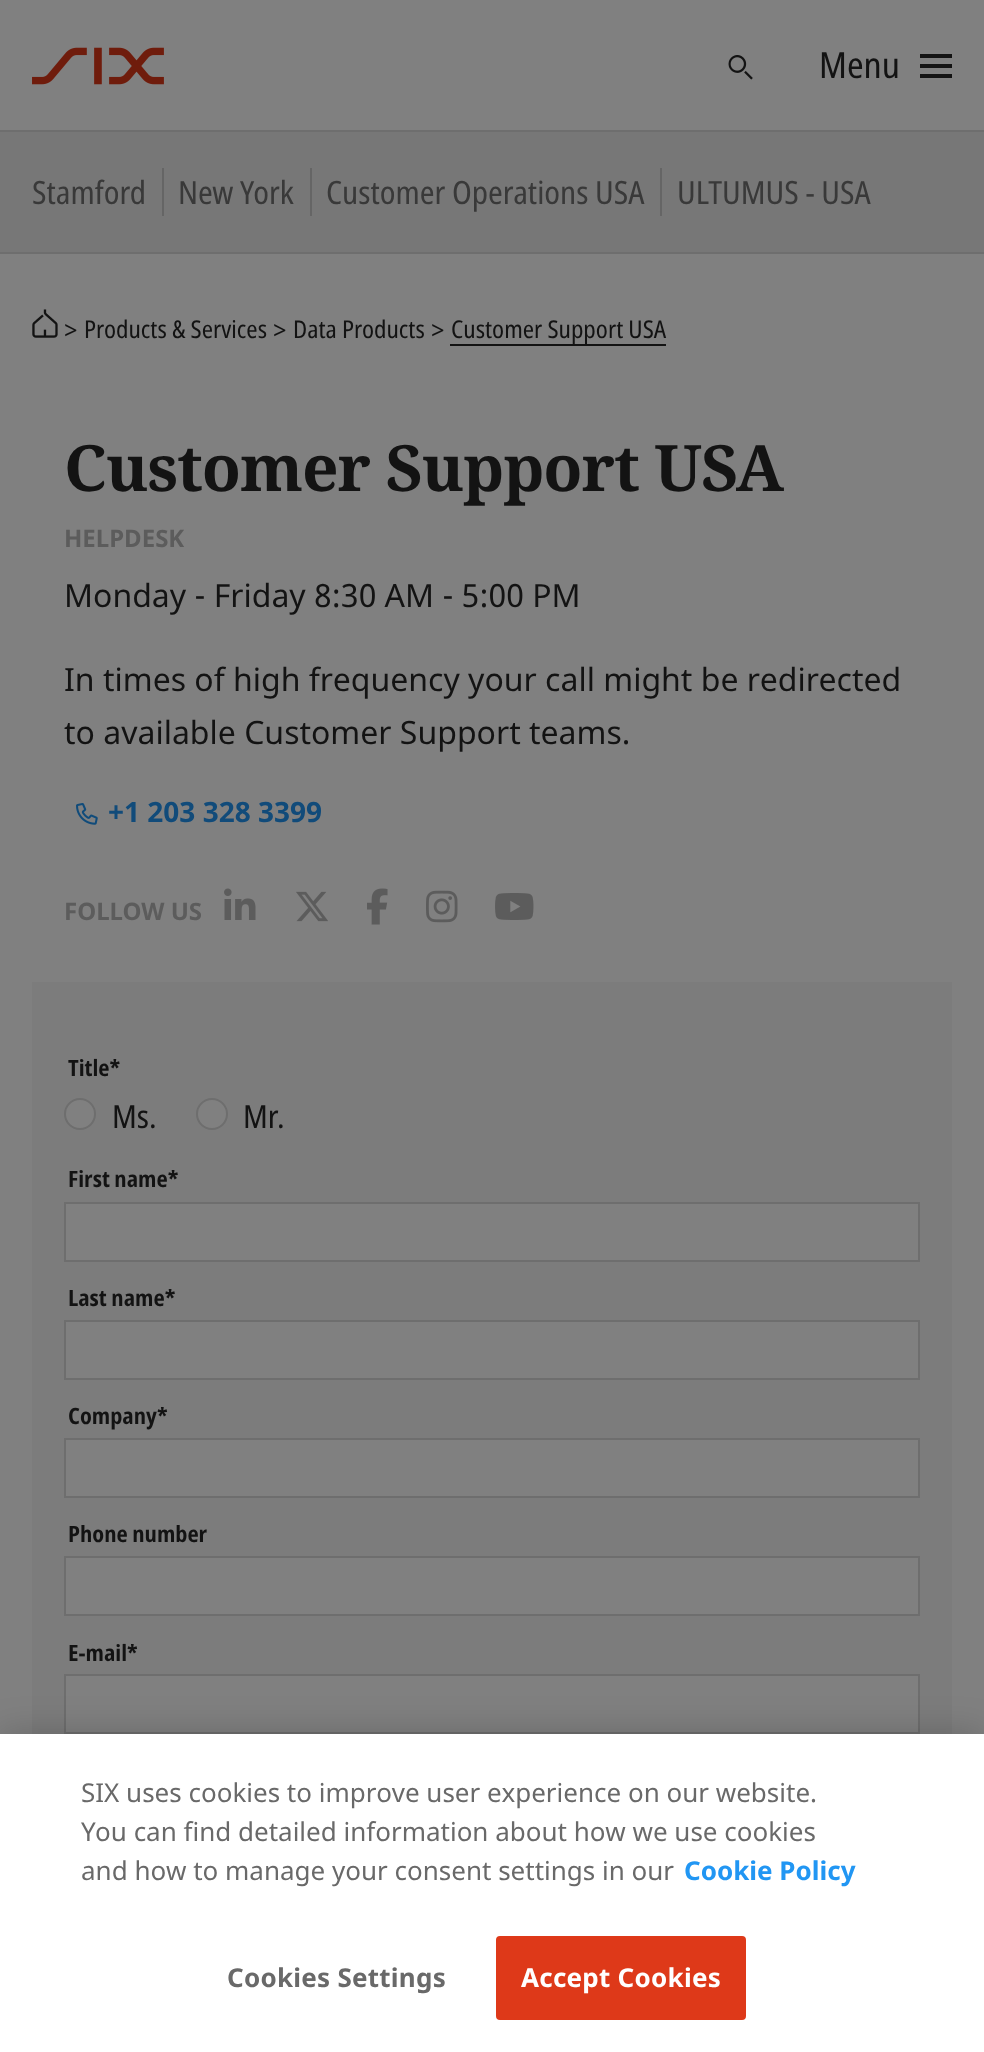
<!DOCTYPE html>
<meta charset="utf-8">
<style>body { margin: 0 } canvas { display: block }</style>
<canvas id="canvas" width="984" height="2052"></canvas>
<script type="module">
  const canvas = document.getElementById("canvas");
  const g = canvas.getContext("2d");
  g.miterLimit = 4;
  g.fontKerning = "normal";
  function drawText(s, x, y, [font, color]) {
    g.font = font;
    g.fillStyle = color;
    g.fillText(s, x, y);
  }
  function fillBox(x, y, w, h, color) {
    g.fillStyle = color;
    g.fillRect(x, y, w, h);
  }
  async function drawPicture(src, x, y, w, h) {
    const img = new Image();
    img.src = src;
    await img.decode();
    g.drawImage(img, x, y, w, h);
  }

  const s1 = ["36px 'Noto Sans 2'", "#131313"];
  const s2 = ["32px 'Noto Sans 2'", "#393939"];
  const s3 = ["24.5px Noto Sans", "#131313"];
  const s4 = ["24.5px 'Noto Sans 2'", "#131313"];
  const s5 = ["bold 64px Noto Serif", "#131313"];
  const s6 = ["bold 24px Noto Sans", "#5C5C5C"];
  const s7 = ["32px Noto Sans", "#131313"];
  const s8 = ["bold 28px Noto Sans", "#114B7A"];
  const s9 = ["bold 22.5px 'Noto Sans 2'", "#131313"];
  const s10 = ["32px 'Noto Sans 2'", "#131313"];
  const s11 = ["26px Noto Sans", "#696969"];
  const s12 = ["bold 26px Noto Sans", "#2196F3"];
  const s13 = ["bold 26px Noto Sans", "#696969"];
  const s14 = ["bold 26px Noto Sans", "#FFFFFF"];

  fillBox(0, 0, 984, 2052, "#808080");
  await drawPicture("pic1.png", 32, 47, 132, 38);
  await drawPicture("pic2.png", 728, 55, 25, 25);
  drawText("Menu", 819, 78, s1);
  await drawPicture("pic3.png", 920, 54, 32, 24);
  fillBox(0, 132, 984, 120, "#777777");
  fillBox(0, 130, 984, 2, "#6E6E6E");
  fillBox(0, 252, 984, 2, "#6E6E6E");
  drawText("Stamford", 32, 204, s2);
  fillBox(162, 168, 2, 48, "#656565");
  drawText("New York", 178, 204, s2);
  fillBox(310, 168, 2, 48, "#656565");
  drawText("Customer Operations USA", 326, 204, s2);
  fillBox(660, 168, 2, 48, "#656565");
  drawText("ULTUMUS - USA", 677, 204, s2);
  await drawPicture("pic4.png", 32, 309, 26, 29);
  drawText(">", 64, 338, s3);
  drawText("Products & Services", 84, 338, s4);
  drawText(">", 273, 338, s3);
  drawText("Data Products", 293, 338, s4);
  drawText(">", 431, 338, s3);
  drawText("Customer Support USA", 451, 338, s4);
  fillBox(450, 344, 216, 2, "#131313");
  g.letterSpacing = "-1.1px";
  drawText("Customer Support USA", 64, 491, s5);
  g.letterSpacing = "0px";
  drawText("HELPDESK", 64, 547, s6);
  drawText("Monday - Friday 8:30 AM - 5:00 PM", 64, 607, s7);
  drawText("In times of high frequency your call might be redirected", 64, 691, s7);
  drawText("to available Customer Support teams.", 64, 744, s7);
  await drawPicture("pic5.png", 76, 803, 22, 22);
  drawText("+1 203 328 3399", 108, 822, s8);
  drawText("FOLLOW US", 64, 920, s6);
  await drawPicture("pic6.png", 224, 888, 32, 32);
  await drawPicture("pic7.png", 296, 891, 32, 31);
  await drawPicture("pic8.png", 367, 888, 21, 37);
  await drawPicture("pic9.png", 426, 890, 32, 33);
  await drawPicture("pic10.png", 495, 893, 39, 27);
  fillBox(32, 982, 920, 752, "#7C7C7C");
  drawText("Title*", 68, 1076, s9);
  g.fillStyle = "#808080";
  g.beginPath();
  g.arc(80, 1114, 15, 0, Math.PI * 2);
  g.fill();
  g.strokeStyle = "#6E6E6E";
  g.lineWidth = 2;
  g.stroke();
  drawText("Ms.", 112, 1128, s10);
  g.fillStyle = "#808080";
  g.beginPath();
  g.arc(212, 1114, 15, 0, Math.PI * 2);
  g.fill();
  g.stroke();
  drawText("Mr.", 243, 1128, s10);
  drawText("First name*", 68, 1187, s9);
  g.fillStyle = "#808080";
  g.beginPath();
  g.rect(65, 1203, 854, 58);
  g.fill();
  g.stroke();
  drawText("Last name*", 68, 1306, s9);
  g.fillStyle = "#808080";
  g.beginPath();
  g.rect(65, 1321, 854, 58);
  g.fill();
  g.stroke();
  drawText("Company*", 68, 1424, s9);
  g.fillStyle = "#808080";
  g.beginPath();
  g.rect(65, 1439, 854, 58);
  g.fill();
  g.stroke();
  drawText("Phone number", 68, 1542, s9);
  g.fillStyle = "#808080";
  g.beginPath();
  g.rect(65, 1557, 854, 58);
  g.fill();
  g.stroke();
  drawText("E-mail*", 68, 1661, s9);
  g.fillStyle = "#808080";
  g.beginPath();
  g.rect(65, 1675, 854, 58);
  g.fill();
  g.stroke();
  g.fillStyle = "rgba(0, 0, 0, 0.2)";
  g.filter = "blur(18px)";
  g.beginPath();
  g.rect(0, 1734, 984, 318);
  g.fill();
  g.filter = "none";
  fillBox(0, 1734, 984, 318, "#FFFFFF");
  drawText("SIX uses cookies to improve user experience on our website.", 81, 1802, s11);
  drawText("You can find detailed information about how we use cookies", 81, 1841, s11);
  drawText("and how to manage your consent settings in our", 81, 1880, s11);
  drawText("Cookie Policy", 684, 1880, s12);
  g.letterSpacing = "0.25px";
  drawText("Cookies Settings", 227, 1987, s13);
  g.fillStyle = "#DE3919";
  g.beginPath();
  g.roundRect(497, 1937, 248, 82, 3);
  g.fill();
  g.strokeStyle = "#DE3919";
  g.stroke();
  drawText("Accept Cookies", 521, 1987, s14);
</script>
